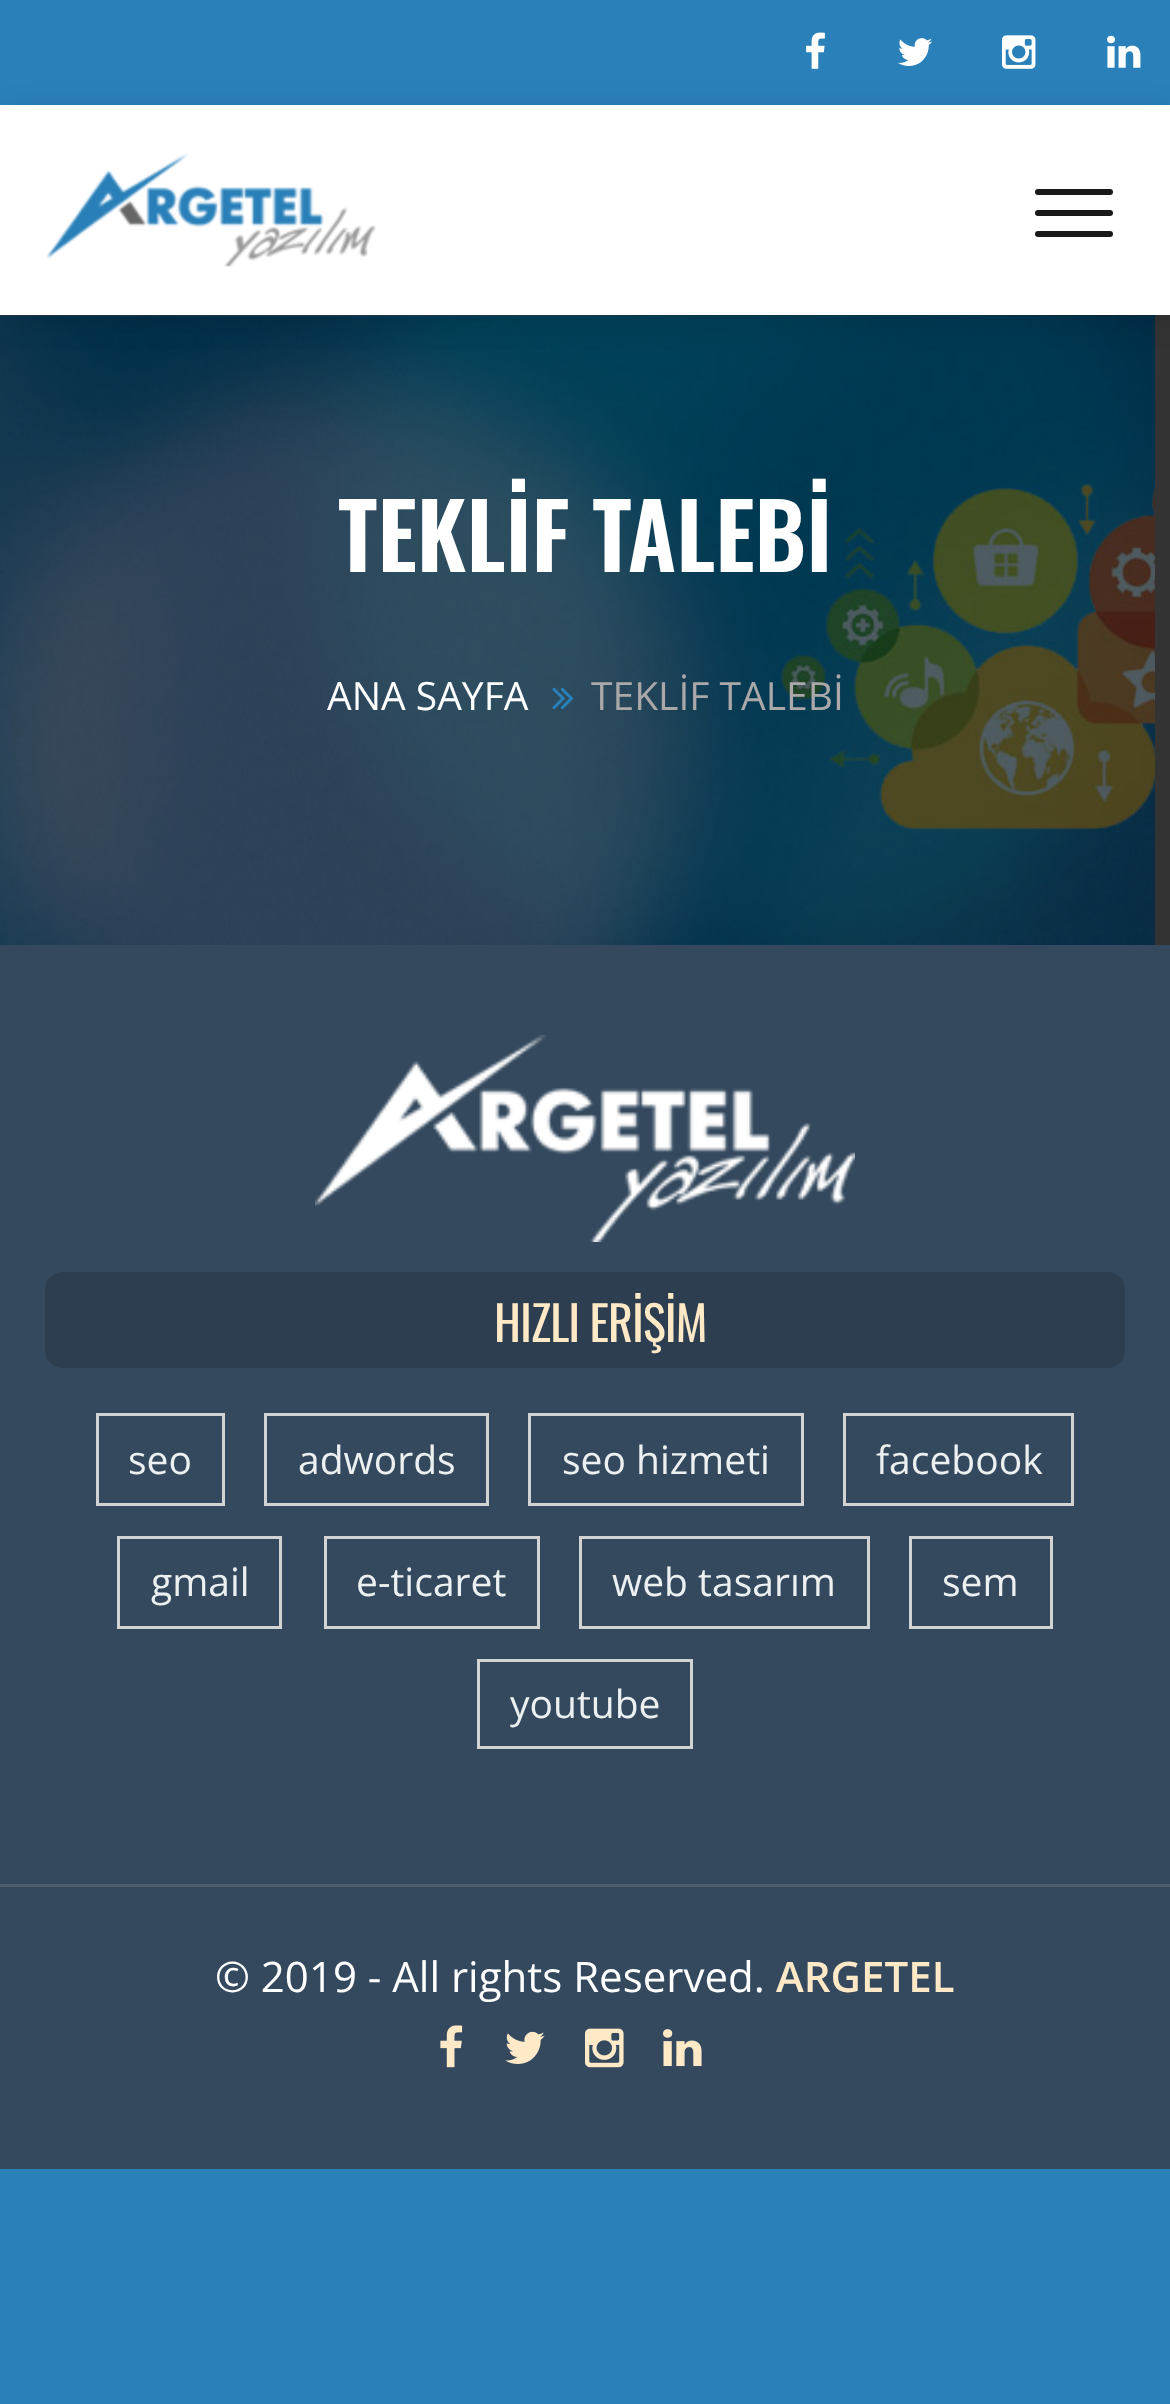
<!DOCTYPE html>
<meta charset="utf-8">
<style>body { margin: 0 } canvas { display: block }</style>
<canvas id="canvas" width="1170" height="2404"></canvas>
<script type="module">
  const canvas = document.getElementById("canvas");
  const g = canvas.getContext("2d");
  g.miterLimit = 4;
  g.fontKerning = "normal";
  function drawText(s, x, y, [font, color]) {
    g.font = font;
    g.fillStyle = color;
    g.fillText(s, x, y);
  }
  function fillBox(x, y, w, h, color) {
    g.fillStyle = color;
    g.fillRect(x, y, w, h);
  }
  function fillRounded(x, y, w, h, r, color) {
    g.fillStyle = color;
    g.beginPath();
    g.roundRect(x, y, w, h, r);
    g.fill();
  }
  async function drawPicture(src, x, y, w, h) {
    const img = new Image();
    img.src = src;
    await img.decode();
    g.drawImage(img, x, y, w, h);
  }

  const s1 = ["600 90px Oswald", "#FFFFFF"];
  const s2 = ["39px Open Sans", "#FFFFFF"];
  const s3 = ["39px Open Sans", "#AAA8A8"];
  const s4 = ["48px Oswald", "#FFE9C7"];
  const s5 = ["39px Open Sans", "#ECF0F1"];
  const s6 = ["42px Open Sans", "#FFFFFF"];
  const s7 = ["600 42px Open Sans", "#FFE9C7"];

  fillBox(0, 0, 1170, 2404, "#2A80B9");
  await drawPicture("pic1.png", 806, 32, 19, 37);
  await drawPicture("pic2.png", 898, 38, 35, 28);
  await drawPicture("pic3.png", 1002, 35, 34, 34);
  await drawPicture("pic4.png", 1107, 35, 34, 33);
  await drawPicture("pic6.png", 0, 315, 1155, 630);
  fillBox(1155, 315, 15, 630, "#333333");
  g.fillStyle = "rgba(0, 0, 0, 0.1)";
  g.filter = "blur(15px)";
  g.beginPath();
  g.rect(6, 111, 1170, 210);
  g.fill();
  g.filter = "none";
  fillBox(0, 105, 1170, 210, "#FFFFFF");
  await drawPicture("pic5.png", 46, 153, 330, 114);
  fillRounded(1035, 189, 78, 6, 3, "#191919");
  fillRounded(1035, 210, 78, 6, 3, "#191919");
  fillRounded(1035, 231, 78, 6, 3, "#191919");
  drawText("TEKLİF TALEBİ", 338, 572, s1);
  drawText("ANA SAYFA", 327, 710, s2);
  await drawPicture("pic7.png", 552, 687, 22, 23);
  drawText("TEKLİF TALEBİ", 591, 710, s3);
  fillBox(0, 945, 1170, 1224, "#34495E");
  await drawPicture("pic8.png", 315, 1035, 540, 207);
  fillRounded(45, 1272, 1080, 96, 18, "#2D3E50");
  g.letterSpacing = "-0.9px";
  drawText("HIZLI ERİŞİM", 494, 1342, s4);
  g.strokeStyle = "#D3D3D3";
  g.lineWidth = 3;
  g.strokeRect(97.5, 1414.5, 126, 90);
  g.letterSpacing = "0px";
  drawText("seo", 128, 1474, s5);
  g.strokeRect(265.5, 1414.5, 222, 90);
  drawText("adwords", 298, 1474, s5);
  g.strokeRect(529.5, 1414.5, 273, 90);
  drawText("seo hizmeti", 562, 1474, s5);
  g.strokeRect(844.5, 1414.5, 228, 90);
  drawText("facebook", 876, 1474, s5);
  g.strokeRect(118.5, 1537.5, 162, 90);
  drawText("gmail", 151, 1596, s5);
  g.strokeRect(325.5, 1537.5, 213, 90);
  drawText("e-ticaret", 356, 1596, s5);
  g.strokeRect(580.5, 1537.5, 288, 90);
  drawText("web tasarım", 612, 1596, s5);
  g.strokeRect(910.5, 1537.5, 141, 90);
  drawText("sem", 942, 1596, s5);
  g.strokeRect(478.5, 1660.5, 213, 87);
  drawText("youtube", 510, 1718, s5);
  fillBox(0, 1884, 1170, 3, "#4D5E6F");
  drawText("© 2019 - All rights Reserved.", 215, 1992, s6);
  drawText("ARGETEL", 776, 1992, s7);
  await drawPicture("pic9.png", 440, 2025, 23, 43);
  await drawPicture("pic10.png", 505, 2031, 40, 33);
  await drawPicture("pic11.png", 585, 2028, 39, 40);
  await drawPicture("pic12.png", 663, 2029, 39, 37);
</script>
